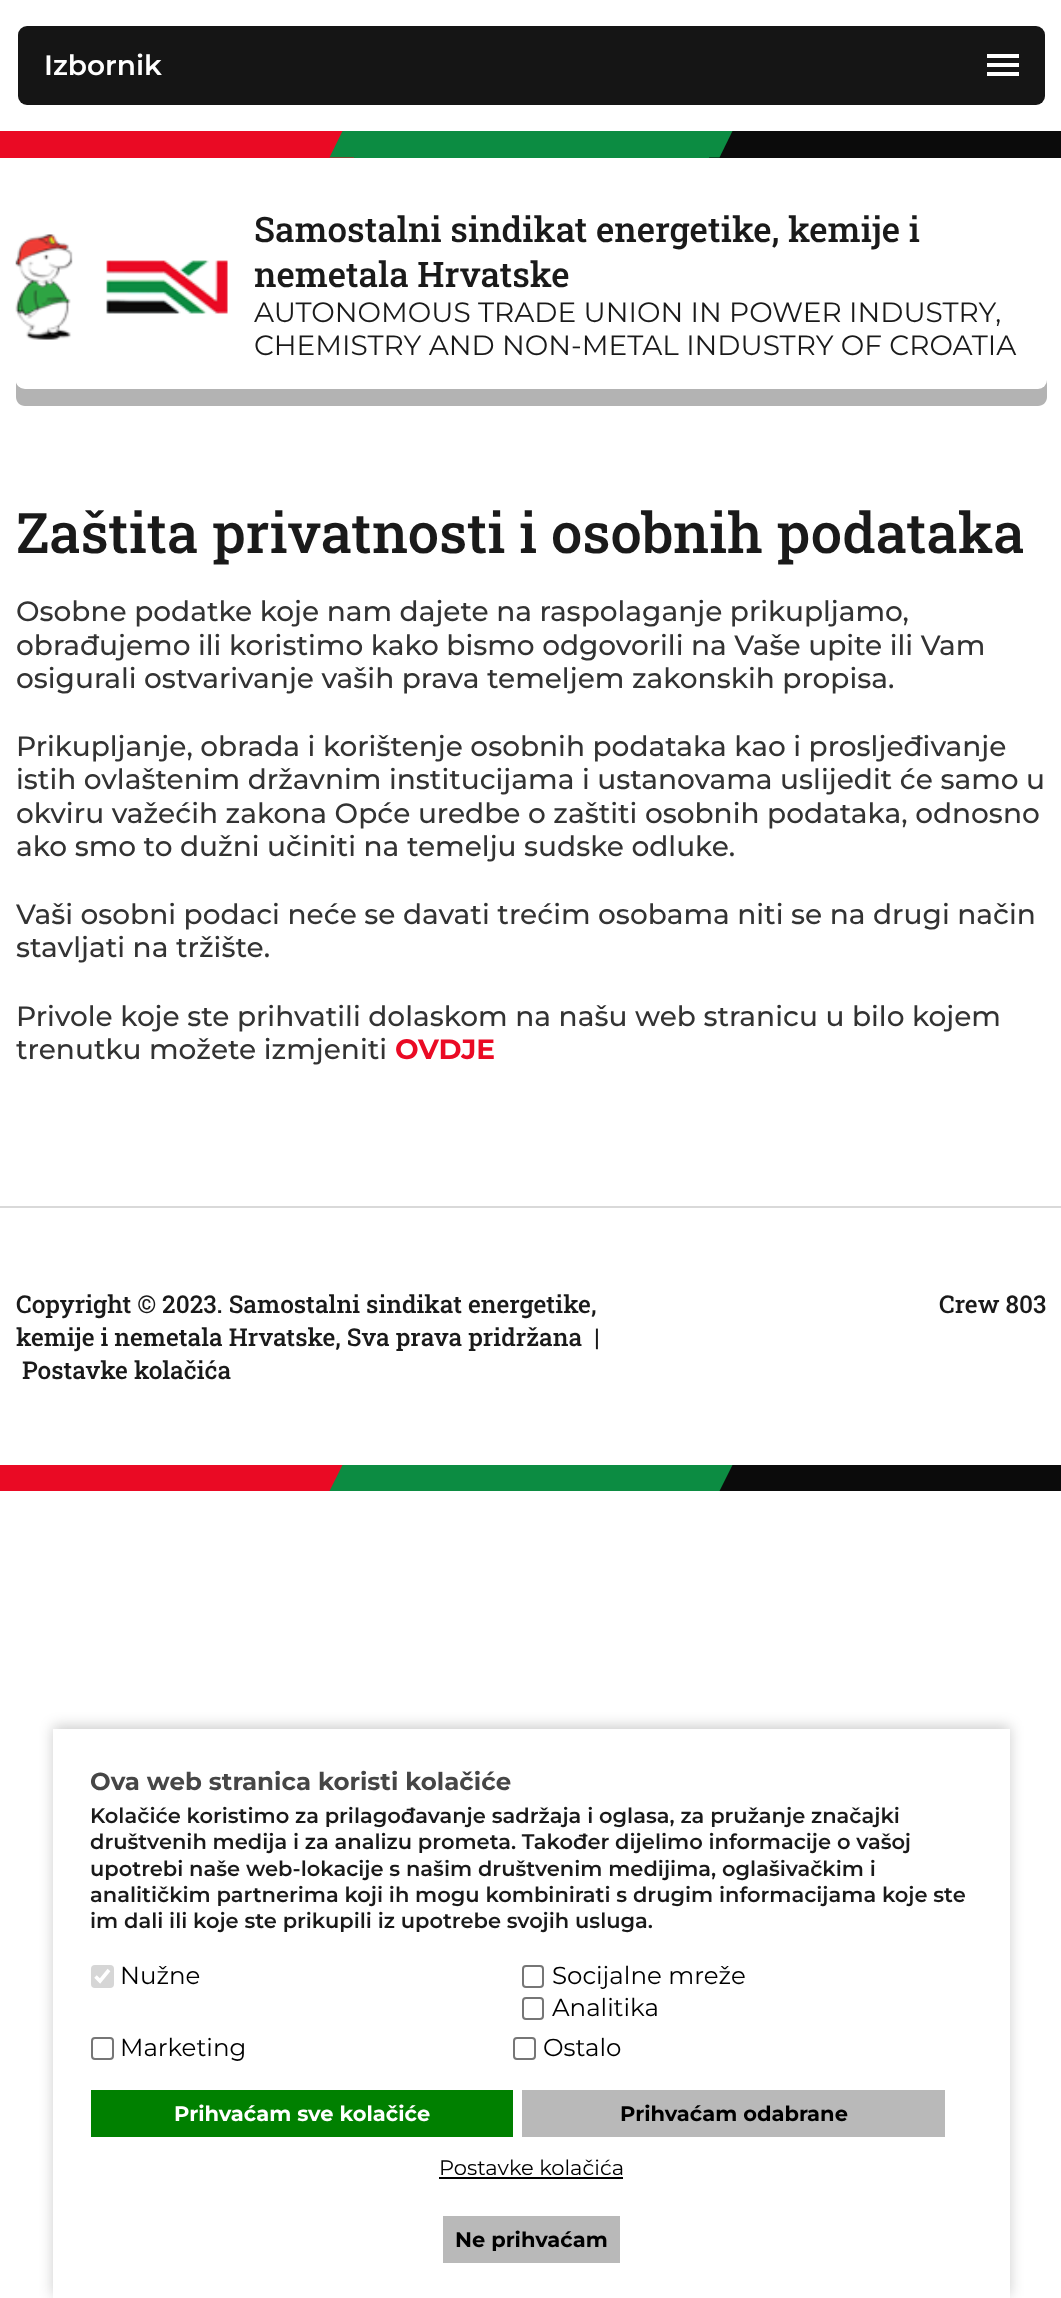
<!DOCTYPE html>
<meta charset="utf-8">
<style>body { margin: 0 } canvas { display: block }</style>
<canvas id="canvas" width="1061" height="2298"></canvas>
<script type="module">
  const canvas = document.getElementById("canvas");
  const g = canvas.getContext("2d");
  g.miterLimit = 4;
  g.fontKerning = "normal";
  function drawText(s, x, y, [font, color]) {
    g.font = font;
    g.fillStyle = color;
    g.fillText(s, x, y);
  }
  function fillBox(x, y, w, h, color) {
    g.fillStyle = color;
    g.fillRect(x, y, w, h);
  }
  function fillRounded(x, y, w, h, r, color) {
    g.fillStyle = color;
    g.beginPath();
    g.roundRect(x, y, w, h, r);
    g.fill();
  }
  async function drawPicture(src, x, y, w, h) {
    const img = new Image();
    img.src = src;
    await img.decode();
    g.drawImage(img, x, y, w, h);
  }

  const s1 = ["600 28px Montserrat", "#FFFFFF"];
  const s2 = ["500 35px Roboto Slab", "#1A1A1A"];
  const s3 = ["28px Montserrat", "#1A1A1A"];
  const s4 = ["500 56px Roboto Slab", "#1A1A1A"];
  const s5 = ["500 28px Montserrat", "#333333"];
  const s6 = ["bold 28px Montserrat", "#EA0A24"];
  const s7 = ["500 24.5px Roboto Slab", "#1A1A1A"];
  const s8 = ["bold 24.5px Montserrat", "#464646"];
  const s9 = ["600 21px Montserrat", "#1A1A1A"];
  const s10 = ["24.5px Montserrat", "#000000"];
  const s11 = ["bold 21px Montserrat", "#FFFFFF"];
  const s12 = ["bold 21px Montserrat", "#000000"];
  const s13 = ["21px Montserrat", "#000000"];

  fillBox(0, 0, 1061, 2298, "#FFFFFF");
  fillRounded(18, 26, 1027, 79, 9, "#151515");
  drawText("Izbornik", 44, 75, s1);
  fillBox(987, 54, 32, 4, "#FFFFFF");
  fillBox(987, 63, 32, 4, "#FFFFFF");
  fillBox(987, 72, 32, 4, "#FFFFFF");
  fillBox(0, 131, 354, 27, "#EA0A24");
  fillBox(354, 131, 355, 27, "#0C8C42");
  g.beginPath();
  g.moveTo(342.5, 131);
  g.lineTo(355, 131);
  g.lineTo(355, 157.5);
  g.lineTo(329.5, 157.5);
  g.closePath();
  g.fill();
  fillBox(709, 131, 352, 27, "#0B0B0B");
  g.fillStyle = "#0C8C42";
  g.beginPath();
  g.moveTo(707, 157.5);
  g.lineTo(707, 131);
  g.lineTo(732.5, 131);
  g.lineTo(719.5, 157.5);
  g.closePath();
  g.fill();
  g.fillStyle = "#B3B3B3";
  g.beginPath();
  g.moveTo(16, 382);
  g.lineTo(16, 397);
  g.bezierCurveTo(16, 402, 20, 406, 25, 406);
  g.lineTo(1038, 406);
  g.bezierCurveTo(1043, 406, 1047, 402, 1047, 397);
  g.lineTo(1047, 237);
  g.lineTo(1046, 234);
  g.lineTo(1046, 380);
  g.bezierCurveTo(1046, 385, 1043, 388, 1038, 388);
  g.lineTo(24, 388);
  g.bezierCurveTo(20, 388, 17, 386, 16, 382);
  g.closePath();
  g.fill();
  fillRounded(16, 210, 1031, 179, 9, "#FFFFFF");
  await drawPicture("pic1.png", 15, 234, 213, 106);
  drawText("Samostalni sindikat energetike, kemije i", 254, 242, s2);
  drawText("nemetala Hrvatske", 254, 287, s2);
  drawText("AUTONOMOUS TRADE UNION IN POWER INDUSTRY,", 254, 322, s3);
  drawText("CHEMISTRY AND NON-METAL INDUSTRY OF CROATIA", 254, 355, s3);
  drawText("Zaštita privatnosti i osobnih podataka", 16, 553, s4);
  drawText("Osobne podatke koje nam dajete na raspolaganje prikupljamo,", 16, 621, s5);
  drawText("obrađujemo ili koristimo kako bismo odgovorili na Vaše upite ili Vam", 16, 655, s5);
  drawText("osigurali ostvarivanje vaših prava temeljem zakonskih propisa.", 16, 688, s5);
  drawText("Prikupljanje, obrada i korištenje osobnih podataka kao i prosljeđivanje", 16, 756, s5);
  drawText("istih ovlaštenim državnim institucijama i ustanovama uslijedit će samo u", 16, 789, s5);
  drawText("okviru važećih zakona Opće uredbe o zaštiti osobnih podataka, odnosno", 16, 823, s5);
  drawText("ako smo to dužni učiniti na temelju sudske odluke.", 16, 856, s5);
  drawText("Vaši osobni podaci neće se davati trećim osobama niti se na drugi način", 16, 924, s5);
  drawText("stavljati na tržište.", 16, 957, s5);
  drawText("Privole koje ste prihvatili dolaskom na našu web stranicu u bilo kojem", 16, 1026, s5);
  drawText("trenutku možete izmjeniti", 16, 1059, s5);
  drawText("OVDJE", 395, 1059, s6);
  fillBox(0, 1206, 1061, 2, "#D9D9D9");
  drawText("Copyright © 2023. Samostalni sindikat energetike,", 16, 1313, s7);
  drawText("kemije i nemetala Hrvatske, Sva prava pridržana  |", 16, 1346, s7);
  drawText("Postavke kolačića", 22, 1379, s7);
  drawText("Crew 803", 939, 1313, s7);
  fillBox(0, 1465, 343, 26, "#EA0A24");
  g.fillStyle = "#0C8C42";
  g.beginPath();
  g.moveTo(329.5, 1491);
  g.lineTo(355, 1491);
  g.lineTo(355, 1465);
  g.lineTo(342.5, 1465);
  g.closePath();
  g.fill();
  fillBox(355, 1465, 352, 26, "#0C8C42");
  fillBox(719, 1465, 342, 26, "#0B0B0B");
  g.fillStyle = "#0C8C42";
  g.beginPath();
  g.moveTo(707, 1465);
  g.lineTo(707, 1491);
  g.lineTo(719.5, 1491);
  g.lineTo(732.5, 1465);
  g.closePath();
  g.fill();
  g.fillStyle = "rgba(0, 0, 0, 0.2)";
  g.filter = "blur(7px)";
  g.beginPath();
  g.rect(53, 1726, 957, 570);
  g.fill();
  g.filter = "none";
  fillBox(53, 1729, 957, 569, "#FFFFFF");
  drawText("Ova web stranica koristi kolačiće", 90, 1790, s8);
  drawText("Kolačiće koristimo za prilagođavanje sadržaja i oglasa, za pružanje značajki", 90, 1823, s9);
  drawText("društvenih medija i za analizu prometa. Također dijelimo informacije o vašoj", 90, 1849, s9);
  drawText("upotrebi naše web-lokacije s našim društvenim medijima, oglašivačkim i", 90, 1876, s9);
  drawText("analitičkim partnerima koji ih mogu kombinirati s drugim informacijama koje ste", 90, 1902, s9);
  drawText("im dali ili koje ste prikupili iz upotrebe svojih usluga.", 90, 1928, s9);
  fillRounded(91, 1965, 23, 23, 4, "#D6D6D6");
  g.beginPath();
  g.moveTo(95.5, 1976.5);
  g.lineTo(100, 1981);
  g.lineTo(109, 1970);
  g.strokeStyle = "#FFFFFF";
  g.lineWidth = 3.6;
  g.stroke();
  drawText("Nužne", 120, 1984, s10);
  g.beginPath();
  g.roundRect(523, 1966, 20, 21, 3);
  g.strokeStyle = "#767676";
  g.lineWidth = 2;
  g.stroke();
  drawText("Socijalne mreže", 552, 1984, s10);
  g.beginPath();
  g.roundRect(523, 1998, 20, 21, 3);
  g.stroke();
  drawText("Analitika", 552, 2016, s10);
  g.beginPath();
  g.roundRect(92, 2038, 21, 21, 3);
  g.stroke();
  drawText("Marketing", 120, 2056, s10);
  g.beginPath();
  g.roundRect(514, 2038, 21, 21, 3);
  g.stroke();
  drawText("Ostalo", 543, 2056, s10);
  fillBox(91, 2090, 422, 47, "#008000");
  drawText("Prihvaćam sve kolačiće", 174, 2121, s11);
  fillBox(522, 2090, 423, 47, "#B9B9B9");
  drawText("Prihvaćam odabrane", 620, 2121, s12);
  drawText("Postavke kolačića", 439, 2175, s13);
  fillBox(439, 2177, 184, 2, "#000000");
  fillBox(443, 2216, 177, 47, "#B9B9B9");
  drawText("Ne prihvaćam", 455, 2247, s12);
</script>
